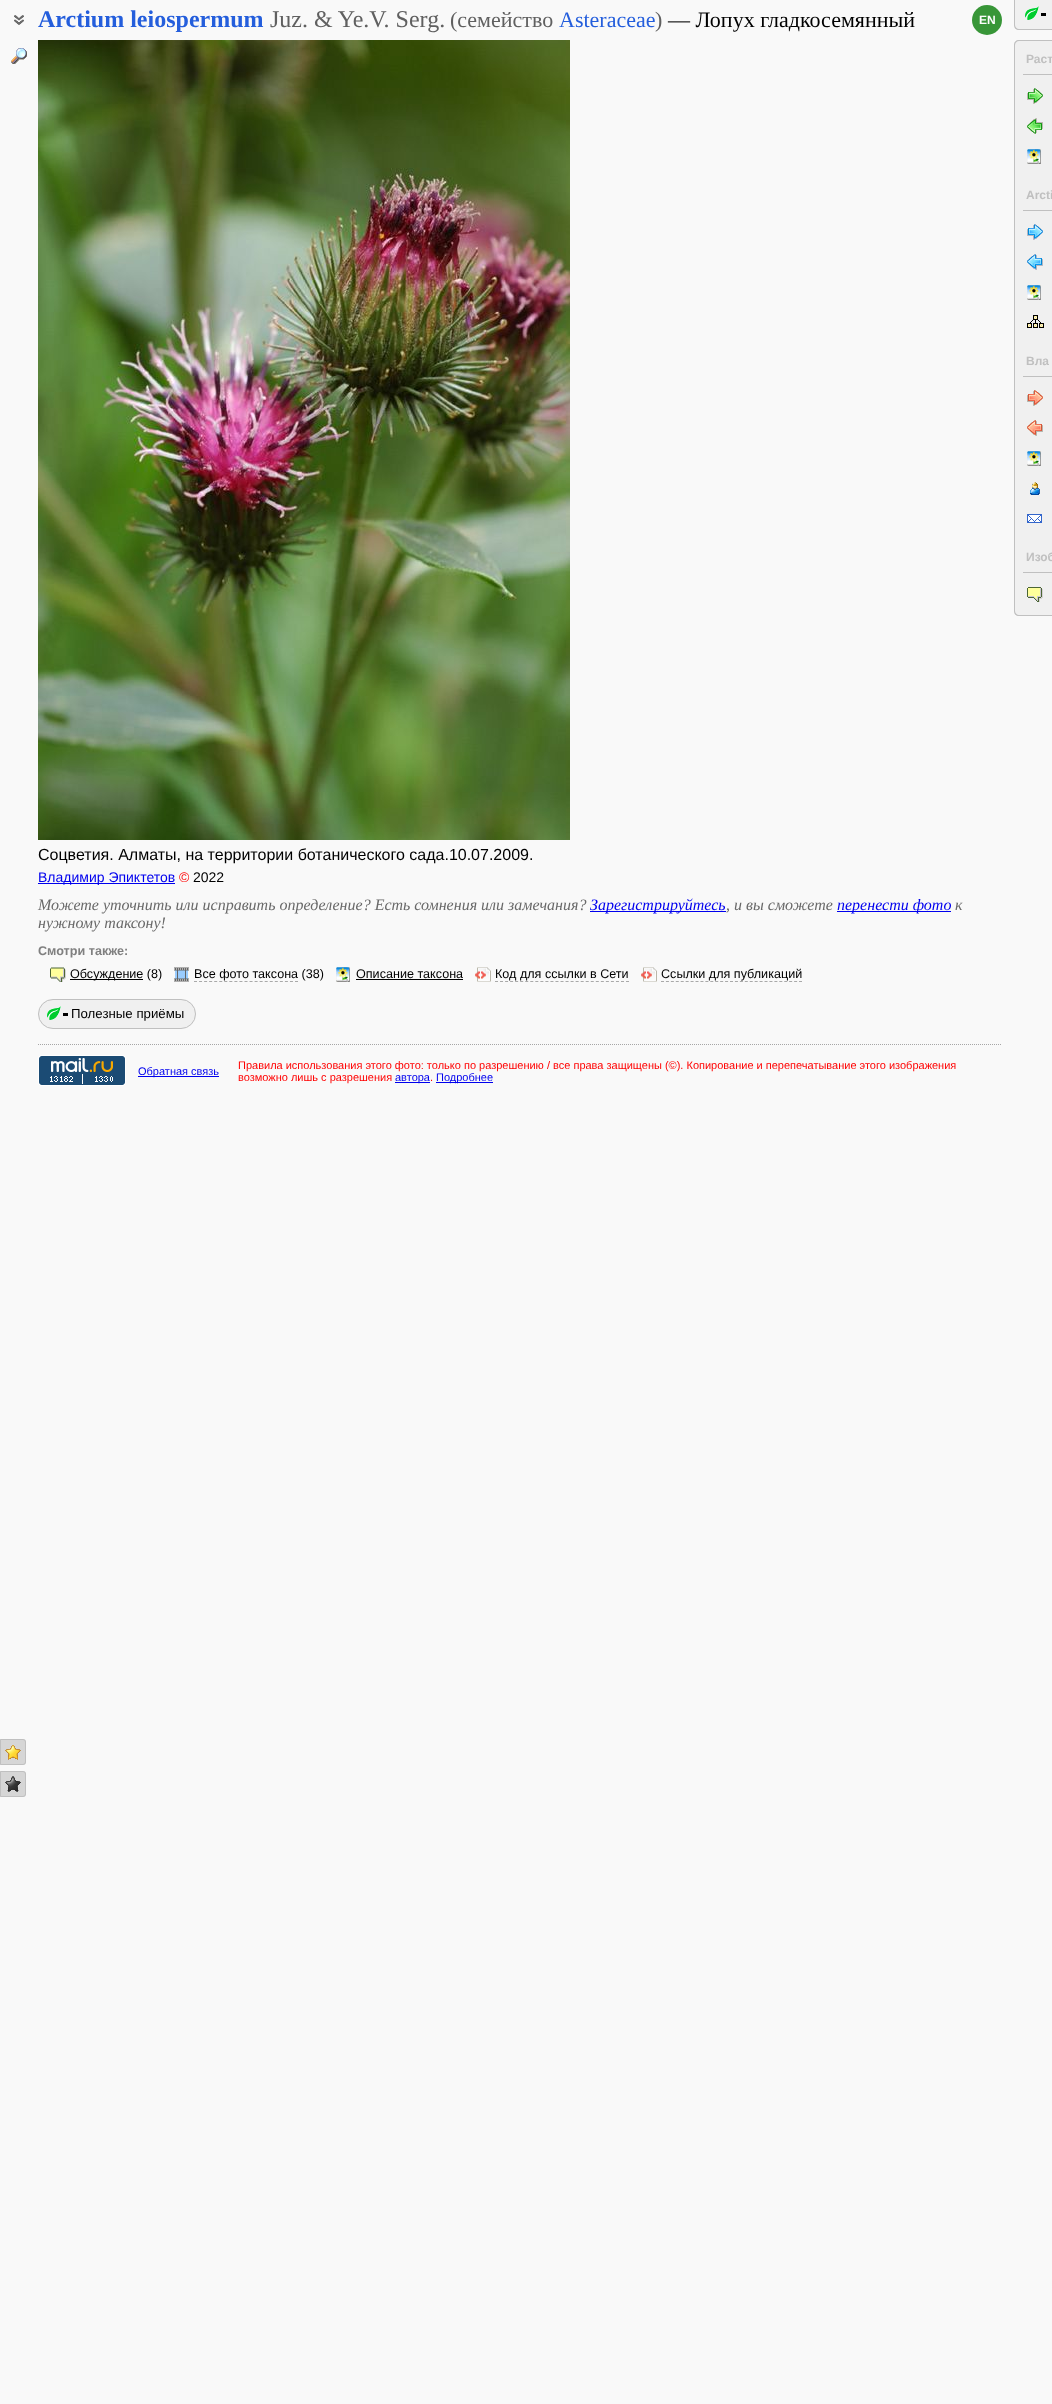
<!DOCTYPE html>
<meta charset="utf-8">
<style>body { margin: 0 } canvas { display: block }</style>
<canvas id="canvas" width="1052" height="2404"></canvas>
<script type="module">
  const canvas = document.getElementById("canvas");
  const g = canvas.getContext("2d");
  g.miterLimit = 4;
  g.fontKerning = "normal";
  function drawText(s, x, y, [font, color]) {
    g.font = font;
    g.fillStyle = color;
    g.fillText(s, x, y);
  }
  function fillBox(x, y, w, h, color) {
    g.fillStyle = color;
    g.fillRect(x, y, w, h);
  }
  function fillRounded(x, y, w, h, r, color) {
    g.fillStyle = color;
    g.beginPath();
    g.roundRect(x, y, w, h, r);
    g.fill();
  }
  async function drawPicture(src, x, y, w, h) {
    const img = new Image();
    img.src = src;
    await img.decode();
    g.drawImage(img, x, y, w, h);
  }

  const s1 = ["bold 24px Liberation Serif", "#245EDC"];
  const s2 = ["24px Liberation Serif", "#606060"];
  const s3 = ["22px Liberation Serif", "#606060"];
  const s4 = ["22px Liberation Serif", "#245EDC"];
  const s5 = ["22px Liberation Serif", "#000000"];
  const s6 = ["bold 12px Liberation Sans", "#FEFEFE"];
  const s7 = ["bold 12px Liberation Sans", "#C0C0C0"];
  const s8 = ["16px Liberation Sans", "#000000"];
  const s9 = ["14px Liberation Sans", "#0000EE"];
  const s10 = ["14px Liberation Sans", "#FF0000"];
  const s11 = ["14px Liberation Sans", "#000000"];
  const s12 = ["italic 16px Liberation Serif", "#696969"];
  const s13 = ["italic 16px Liberation Serif", "#0000EE"];
  const s14 = ["bold 12.6px Liberation Sans", "#808080"];
  const s15 = ["12.6px Liberation Sans", "#000000"];
  const s16 = ["13.25px Liberation Sans", "#000000"];
  const s17 = ["11px Liberation Sans", "#0000EE"];
  const s18 = ["11px Liberation Sans", "#FF0000"];

  fillBox(0, 0, 1052, 2404, "#F9F9F9");
  await drawPicture("pic1.png", 14, 15, 10, 10);
  drawText("Arctium leiospermum", 38, 27, s1);
  drawText("Juz. & Ye.V. Serg.", 270, 27, s2);
  drawText("(семейство", 450, 27, s3);
  drawText("Asteraceae", 559, 27, s4);
  drawText(")", 655, 27, s3);
  drawText("— Лопух гладкосемянный", 668, 27, s5);
  g.fillStyle = "#389638";
  g.beginPath();
  g.arc(987, 20, 15, 0, Math.PI * 2);
  g.fill();
  drawText("EN", 979, 24, s6);
  await drawPicture("pic2.png", 11, 48, 16, 16);
  g.fillStyle = "#D6D6D6";
  g.beginPath();
  g.roundRect(0, 1739, 26, 26, [0, 3, 3, 0]);
  g.fill();
  await drawPicture("pic3.png", 5, 1745, 16, 15);
  g.beginPath();
  g.roundRect(0.5, 1739.5, 25, 25, [0, 2.5, 2.5, 0]);
  g.strokeStyle = "#C0C0C0";
  g.stroke();
  g.beginPath();
  g.roundRect(0, 1771, 26, 26, [0, 3, 3, 0]);
  g.fill();
  await drawPicture("pic4.png", 5, 1776, 16, 16);
  g.beginPath();
  g.roundRect(0.5, 1771.5, 25, 25, [0, 2.5, 2.5, 0]);
  g.stroke();
  g.fillStyle = "#F0F0F0";
  g.beginPath();
  g.roundRect(1014, 0, 38, 30, [0, 0, 0, 5]);
  g.fill();
  await drawPicture("pic5.png", 1025, 6, 14, 14);
  g.fillStyle = "#C0C0C0";
  g.beginPath();
  g.moveTo(1014, 0);
  g.lineTo(1052, 0);
  g.lineTo(1052, 30);
  g.lineTo(1019, 30);
  g.bezierCurveTo(1016, 30, 1014, 28, 1014, 25);
  g.closePath();
  g.moveTo(1015, 0);
  g.lineTo(1052, 0);
  g.lineTo(1052, 29);
  g.lineTo(1019, 29);
  g.bezierCurveTo(1017, 29, 1015, 27, 1015, 25);
  g.closePath();
  g.fill("evenodd");
  fillBox(1041, 13, 5, 3, "#000000");
  g.fillStyle = "#F0F0F0";
  g.beginPath();
  g.moveTo(1019, 40);
  g.lineTo(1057, 40);
  g.lineTo(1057, 616);
  g.lineTo(1019, 616);
  g.bezierCurveTo(1016, 616, 1014, 614, 1014, 611);
  g.lineTo(1014, 45);
  g.bezierCurveTo(1014, 42, 1016, 40, 1019, 40);
  g.closePath();
  g.fill();
  g.fillStyle = "#C0C0C0";
  g.beginPath();
  g.moveTo(1019, 40);
  g.lineTo(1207, 40);
  g.lineTo(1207, 616);
  g.lineTo(1019, 616);
  g.bezierCurveTo(1016, 616, 1014, 614, 1014, 611);
  g.lineTo(1014, 45);
  g.bezierCurveTo(1014, 42, 1016, 40, 1019, 40);
  g.closePath();
  g.moveTo(1019, 41);
  g.lineTo(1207, 41);
  g.lineTo(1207, 615);
  g.lineTo(1019, 615);
  g.bezierCurveTo(1017, 615, 1015, 613, 1015, 611);
  g.lineTo(1015, 45);
  g.bezierCurveTo(1015, 43, 1017, 41, 1019, 41);
  g.closePath();
  g.fill("evenodd");
  fillBox(1023, 74, 29, 1, "#C0C0C0");
  drawText("Раст", 1026, 63, s7);
  await drawPicture("pic6.png", 1027, 88, 16, 16);
  await drawPicture("pic7.png", 1027, 118, 16, 16);
  await drawPicture("pic8.png", 1027, 149, 14, 15);
  fillBox(1023, 210, 29, 1, "#C0C0C0");
  drawText("Arcti", 1026, 199, s7);
  await drawPicture("pic9.png", 1027, 224, 16, 16);
  await drawPicture("pic10.png", 1027, 254, 16, 16);
  await drawPicture("pic8.png", 1027, 285, 14, 15);
  await drawPicture("pic11.png", 1027, 315, 17, 13);
  fillBox(1023, 376, 29, 1, "#C0C0C0");
  drawText("Вла", 1026, 365, s7);
  await drawPicture("pic12.png", 1027, 390, 16, 16);
  await drawPicture("pic13.png", 1027, 420, 16, 16);
  await drawPicture("pic8.png", 1027, 451, 14, 15);
  await drawPicture("pic14.png", 1030, 482, 10, 13);
  await drawPicture("pic15.png", 1027, 514, 15, 9);
  fillBox(1023, 572, 29, 1, "#C0C0C0");
  drawText("Изоб", 1026, 561, s7);
  await drawPicture("pic16.png", 1027, 587, 16, 15);
  await drawPicture("pic17.png", 38, 40, 532, 800);
  drawText("Соцветия. Алматы, на территории ботанического сада.10.07.2009.", 38, 860, s8);
  fillBox(38, 883, 137, 1, "#0000EE");
  drawText("Владимир Эпиктетов", 38, 882, s9);
  drawText("©", 179, 882, s10);
  drawText("2022", 193, 882, s11);
  drawText("Можете уточнить или исправить определение? Есть сомнения или замечания?", 38, 910, s12);
  fillBox(590, 911, 136, 1, "#0000EE");
  drawText("Зарегистрируйтесь", 590, 910, s13);
  drawText(", и вы сможете", 726, 910, s12);
  fillBox(837, 911, 114, 1, "#0000EE");
  drawText("перенести фото", 837, 910, s13);
  drawText("к", 955, 910, s12);
  drawText("нужному таксону!", 38, 928, s12);
  drawText("Смотри также:", 38, 955, s14);
  await drawPicture("pic18.png", 50, 967, 16, 15);
  fillBox(70, 979, 73, 1, "#000000");
  drawText("Обсуждение (8)", 70, 978, s15);
  await drawPicture("pic19.png", 174, 967, 15, 15);
  drawText("Все фото таксона (38)", 194, 978, s15);
  g.beginPath();
  g.moveTo(194, 981.5);
  g.lineTo(298, 981.5);
  g.strokeStyle = "#A9A9A9";
  g.setLineDash([3, 2.05]);
  g.stroke();
  await drawPicture("pic8.png", 336, 967, 14, 15);
  drawText("Описание таксона", 356, 978, s15);
  fillBox(356, 979, 107, 1, "#000000");
  await drawPicture("pic20.png", 475, 967, 16, 15);
  drawText("Код для ссылки в Сети", 495, 978, s15);
  g.beginPath();
  g.moveTo(495, 981.5);
  g.lineTo(629, 981.5);
  g.setLineDash([3, 2.04]);
  g.stroke();
  await drawPicture("pic20.png", 641, 967, 16, 15);
  drawText("Ссылки для публикаций", 661, 978, s15);
  g.beginPath();
  g.moveTo(661, 981.5);
  g.lineTo(802, 981.5);
  g.setLineDash([3, 1.93]);
  g.stroke();
  fillRounded(38, 999, 158, 30, 15, "#F0F0F0");
  fillBox(63, 1013, 5, 3, "#000000");
  g.beginPath();
  g.roundRect(38.5, 999.5, 157, 29, 14.5);
  g.strokeStyle = "#C0C0C0";
  g.setLineDash([]);
  g.stroke();
  await drawPicture("pic5.png", 47, 1006, 14, 14);
  drawText("Полезные приёмы", 71, 1018, s16);
  g.beginPath();
  g.moveTo(38, 1044.5);
  g.lineTo(1002, 1044.5);
  g.strokeStyle = "#A6A6A6";
  g.setLineDash([1, 1]);
  g.stroke();
  await drawPicture("pic21.png", 38, 1055, 88, 31);
  fillBox(138, 1076, 81, 1, "#0000EE");
  drawText("Обратная связь", 138, 1075, s17);
  drawText("Правила использования этого фото: только по разрешению / все права защищены (©). Копирование и перепечатывание этого изображения", 238, 1069, s18);
  drawText("возможно лишь с разрешения", 238, 1081, s18);
  fillBox(395, 1082, 35, 1, "#0000EE");
  drawText("автора", 395, 1081, s17);
  drawText(".", 430, 1081, s18);
  fillBox(436, 1082, 57, 1, "#0000EE");
  drawText("Подробнее", 436, 1081, s17);
</script>
